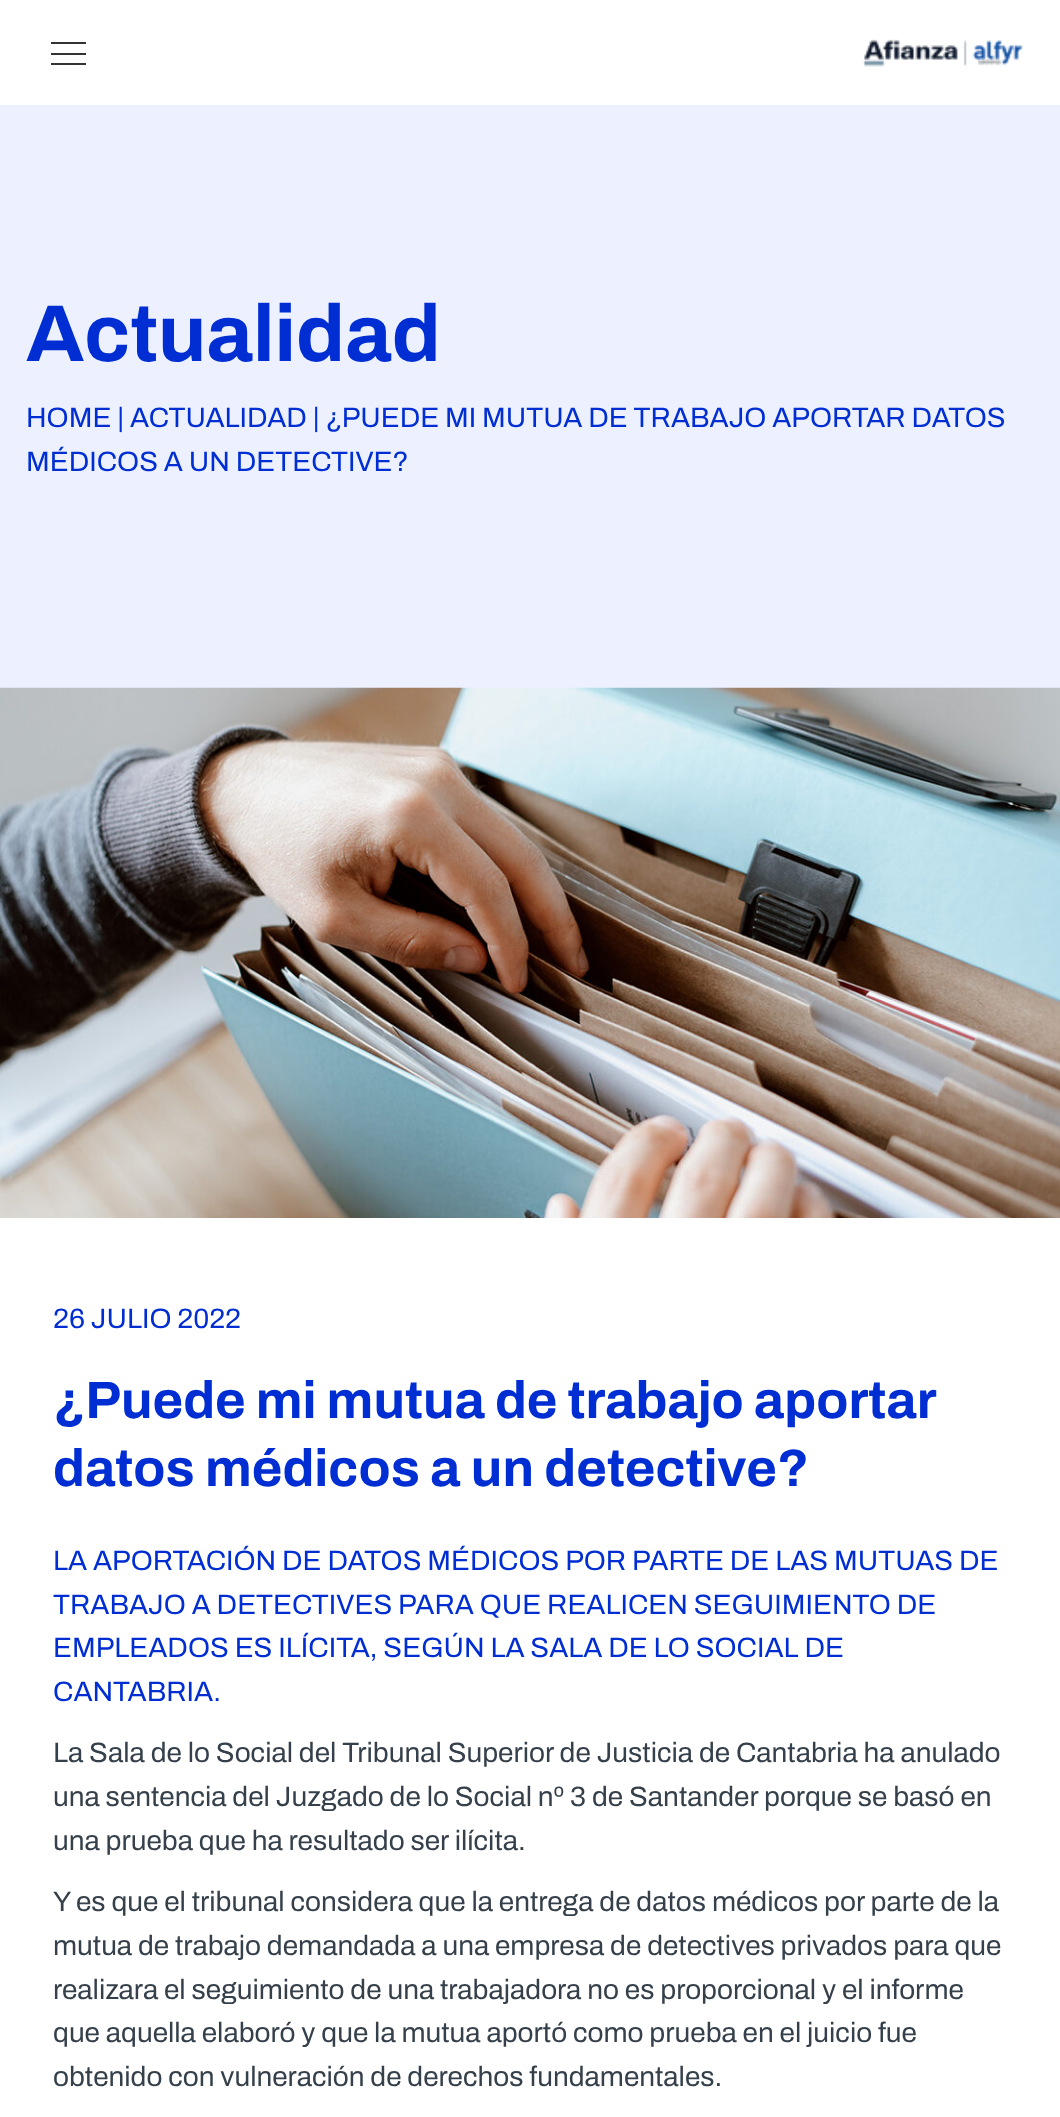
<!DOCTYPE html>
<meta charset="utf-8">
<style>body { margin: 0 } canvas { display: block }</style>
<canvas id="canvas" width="1060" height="2117"></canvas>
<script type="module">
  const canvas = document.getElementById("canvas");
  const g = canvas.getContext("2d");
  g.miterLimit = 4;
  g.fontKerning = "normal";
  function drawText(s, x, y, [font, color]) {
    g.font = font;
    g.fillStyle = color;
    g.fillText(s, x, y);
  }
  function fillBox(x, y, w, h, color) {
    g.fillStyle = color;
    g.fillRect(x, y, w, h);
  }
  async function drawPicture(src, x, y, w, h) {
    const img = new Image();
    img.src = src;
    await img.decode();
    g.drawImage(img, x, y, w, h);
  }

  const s1 = ["bold 80.5px Archivo", "#002ED2"];
  const s2 = ["28px Archivo", "#002ED2"];
  const s3 = ["bold 52.5px Archivo", "#002ED2"];
  const s4 = ["28px Archivo", "#35404B"];

  fillBox(0, 0, 1060, 2117, "#FFFFFF");
  fillBox(51, 42, 35, 2, "#333333");
  fillBox(51, 53, 35, 2, "#333333");
  fillBox(51, 63, 35, 2, "#333333");
  await drawPicture("pic1.png", 863, 39, 160, 28);
  fillBox(0, 105, 1060, 583, "#ECF0FF");
  drawText("Actualidad", 26, 361, s1);
  drawText("HOME | ACTUALIDAD | ¿PUEDE MI MUTUA DE TRABAJO APORTAR DATOS", 26, 427, s2);
  drawText("MÉDICOS A UN DETECTIVE?", 26, 471, s2);
  await drawPicture("pic2.png", 0, 687, 1060, 531);
  drawText("26 JULIO 2022", 53, 1328, s2);
  g.wordSpacing = "-0.25px";
  drawText("¿Puede mi mutua de trabajo aportar", 53, 1418, s3);
  g.wordSpacing = "0px";
  drawText("datos médicos a un detective?", 53, 1486, s3);
  drawText("LA APORTACIÓN DE DATOS MÉDICOS POR PARTE DE LAS MUTUAS DE", 53, 1570, s2);
  drawText("TRABAJO A DETECTIVES PARA QUE REALICEN SEGUIMIENTO DE", 53, 1614, s2);
  drawText("EMPLEADOS ES ILÍCITA, SEGÚN LA SALA DE LO SOCIAL DE", 53, 1657, s2);
  drawText("CANTABRIA.", 53, 1701, s2);
  drawText("La Sala de lo Social del Tribunal Superior de Justicia de Cantabria ha anulado", 53, 1762, s4);
  drawText("una sentencia del Juzgado de lo Social nº 3 de Santander porque se basó en", 53, 1806, s4);
  drawText("una prueba que ha resultado ser ilícita.", 53, 1850, s4);
  drawText("Y es que el tribunal considera que la entrega de datos médicos por parte de la", 53, 1911, s4);
  drawText("mutua de trabajo demandada a una empresa de detectives privados para que", 53, 1955, s4);
  drawText("realizara el seguimiento de una trabajadora no es proporcional y el informe", 53, 1999, s4);
  drawText("que aquella elaboró y que la mutua aportó como prueba en el juicio fue", 53, 2042, s4);
  drawText("obtenido con vulneración de derechos fundamentales.", 53, 2086, s4);
</script>
